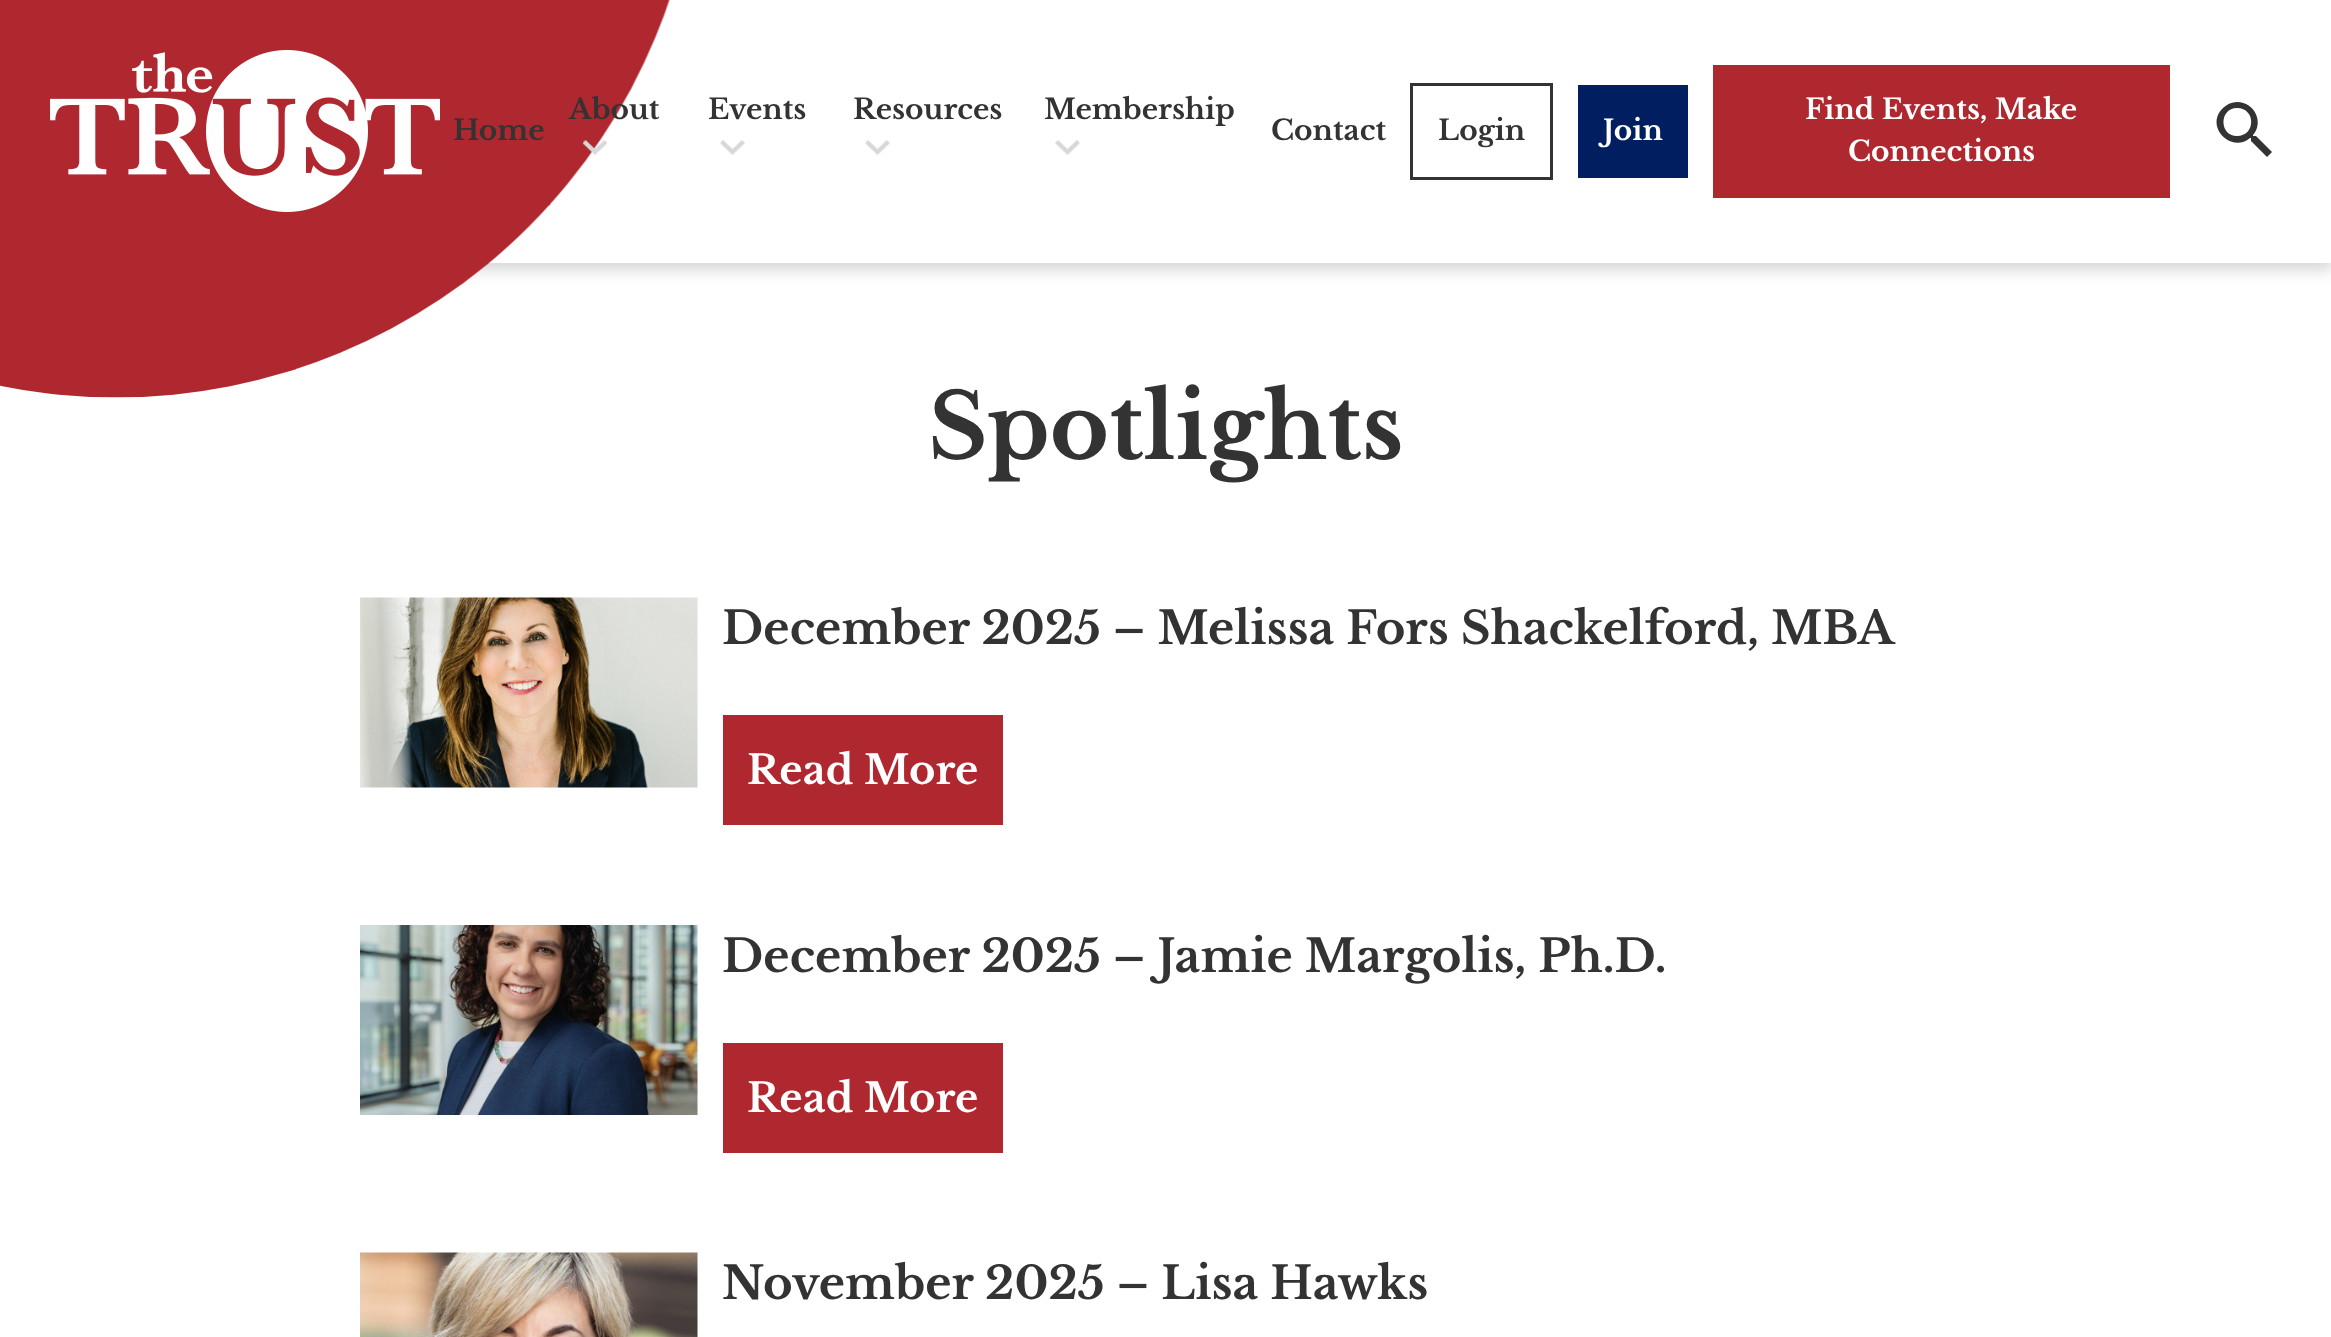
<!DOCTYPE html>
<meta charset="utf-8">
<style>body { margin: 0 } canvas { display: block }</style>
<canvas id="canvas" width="2331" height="1337"></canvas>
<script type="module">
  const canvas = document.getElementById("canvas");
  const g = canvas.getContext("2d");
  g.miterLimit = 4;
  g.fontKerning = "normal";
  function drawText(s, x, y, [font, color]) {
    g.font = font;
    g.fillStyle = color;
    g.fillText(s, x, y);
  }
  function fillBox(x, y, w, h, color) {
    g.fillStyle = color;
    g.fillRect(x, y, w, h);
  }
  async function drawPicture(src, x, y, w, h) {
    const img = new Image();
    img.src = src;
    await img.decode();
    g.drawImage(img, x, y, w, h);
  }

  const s1 = ["bold 28px Libre Baskerville", "#333333"];
  const s2 = ["bold 28px Libre Baskerville", "#FFFFFF"];
  const s3 = ["bold 90px Libre Baskerville", "#333333"];
  const s4 = ["bold 45px Libre Baskerville", "#333333"];
  const s5 = ["bold 40px Libre Baskerville", "#FFFFFF"];

  fillBox(0, 0, 2331, 1337, "#FFFFFF");
  g.fillStyle = "rgba(0, 0, 0, 0.16)";
  g.filter = "blur(7.5px)";
  g.beginPath();
  g.rect(0, 8, 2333, 262);
  g.fill();
  g.filter = "none";
  fillBox(488, 0, 1843, 263, "#FFFFFF");
  await drawPicture("pic1.png", 0, 0, 670, 398);
  await drawPicture("pic2.png", 50, 50, 390, 162);
  drawText("About", 569, 119, s1);
  await drawPicture("pic3.png", 583, 140, 24, 15);
  drawText("Events", 708, 119, s1);
  await drawPicture("pic4.png", 720, 140, 25, 15);
  drawText("Resources", 853, 119, s1);
  await drawPicture("pic4.png", 865, 140, 25, 15);
  drawText("Membership", 1044, 119, s1);
  await drawPicture("pic4.png", 1055, 140, 25, 15);
  fillBox(1713, 65, 457, 133, "#AF272F");
  drawText("Find Events, Make", 1805, 119, s2);
  drawText("Connections", 1848, 161, s2);
  drawText("Home", 453, 140, s1);
  drawText("Contact", 1271, 140, s1);
  g.strokeStyle = "#333333";
  g.lineWidth = 3;
  g.strokeRect(1411.5, 84.5, 140, 94);
  drawText("Login", 1438, 140, s1);
  fillBox(1578, 85, 110, 93, "#001E60");
  drawText("Join", 1603, 140, s2);
  g.fillStyle = "#333333";
  g.beginPath();
  g.moveTo(2237, 102);
  g.bezierCurveTo(2255, 102, 2264, 123, 2253, 135);
  g.lineTo(2253, 136);
  g.lineTo(2256, 136);
  g.lineTo(2272, 152);
  g.lineTo(2267, 157);
  g.lineTo(2251, 141);
  g.lineTo(2251, 138);
  g.lineTo(2250, 138);
  g.bezierCurveTo(2231, 154, 2204, 126, 2223, 108);
  g.bezierCurveTo(2227, 104, 2232, 102, 2237, 102);
  g.moveTo(2237, 108);
  g.bezierCurveTo(2219, 108, 2219, 136, 2237, 136);
  g.bezierCurveTo(2256, 136, 2256, 108, 2237, 108);
  g.closePath();
  g.fill();
  drawText("Spotlights", 928, 459, s3);
  await drawPicture("pic5.png", 360, 597, 338, 191);
  drawText("December 2025 – Melissa Fors Shackelford, MBA", 722, 644, s4);
  fillBox(723, 715, 280, 110, "#AF272F");
  drawText("Read More", 747, 784, s5);
  await drawPicture("pic6.png", 360, 925, 338, 190);
  drawText("December 2025 – Jamie Margolis, Ph.D.", 722, 972, s4);
  fillBox(723, 1043, 280, 110, "#AF272F");
  drawText("Read More", 747, 1112, s5);
  await drawPicture("pic7.png", 360, 1252, 338, 85);
  drawText("November 2025 – Lisa Hawks", 722, 1299, s4);
</script>
